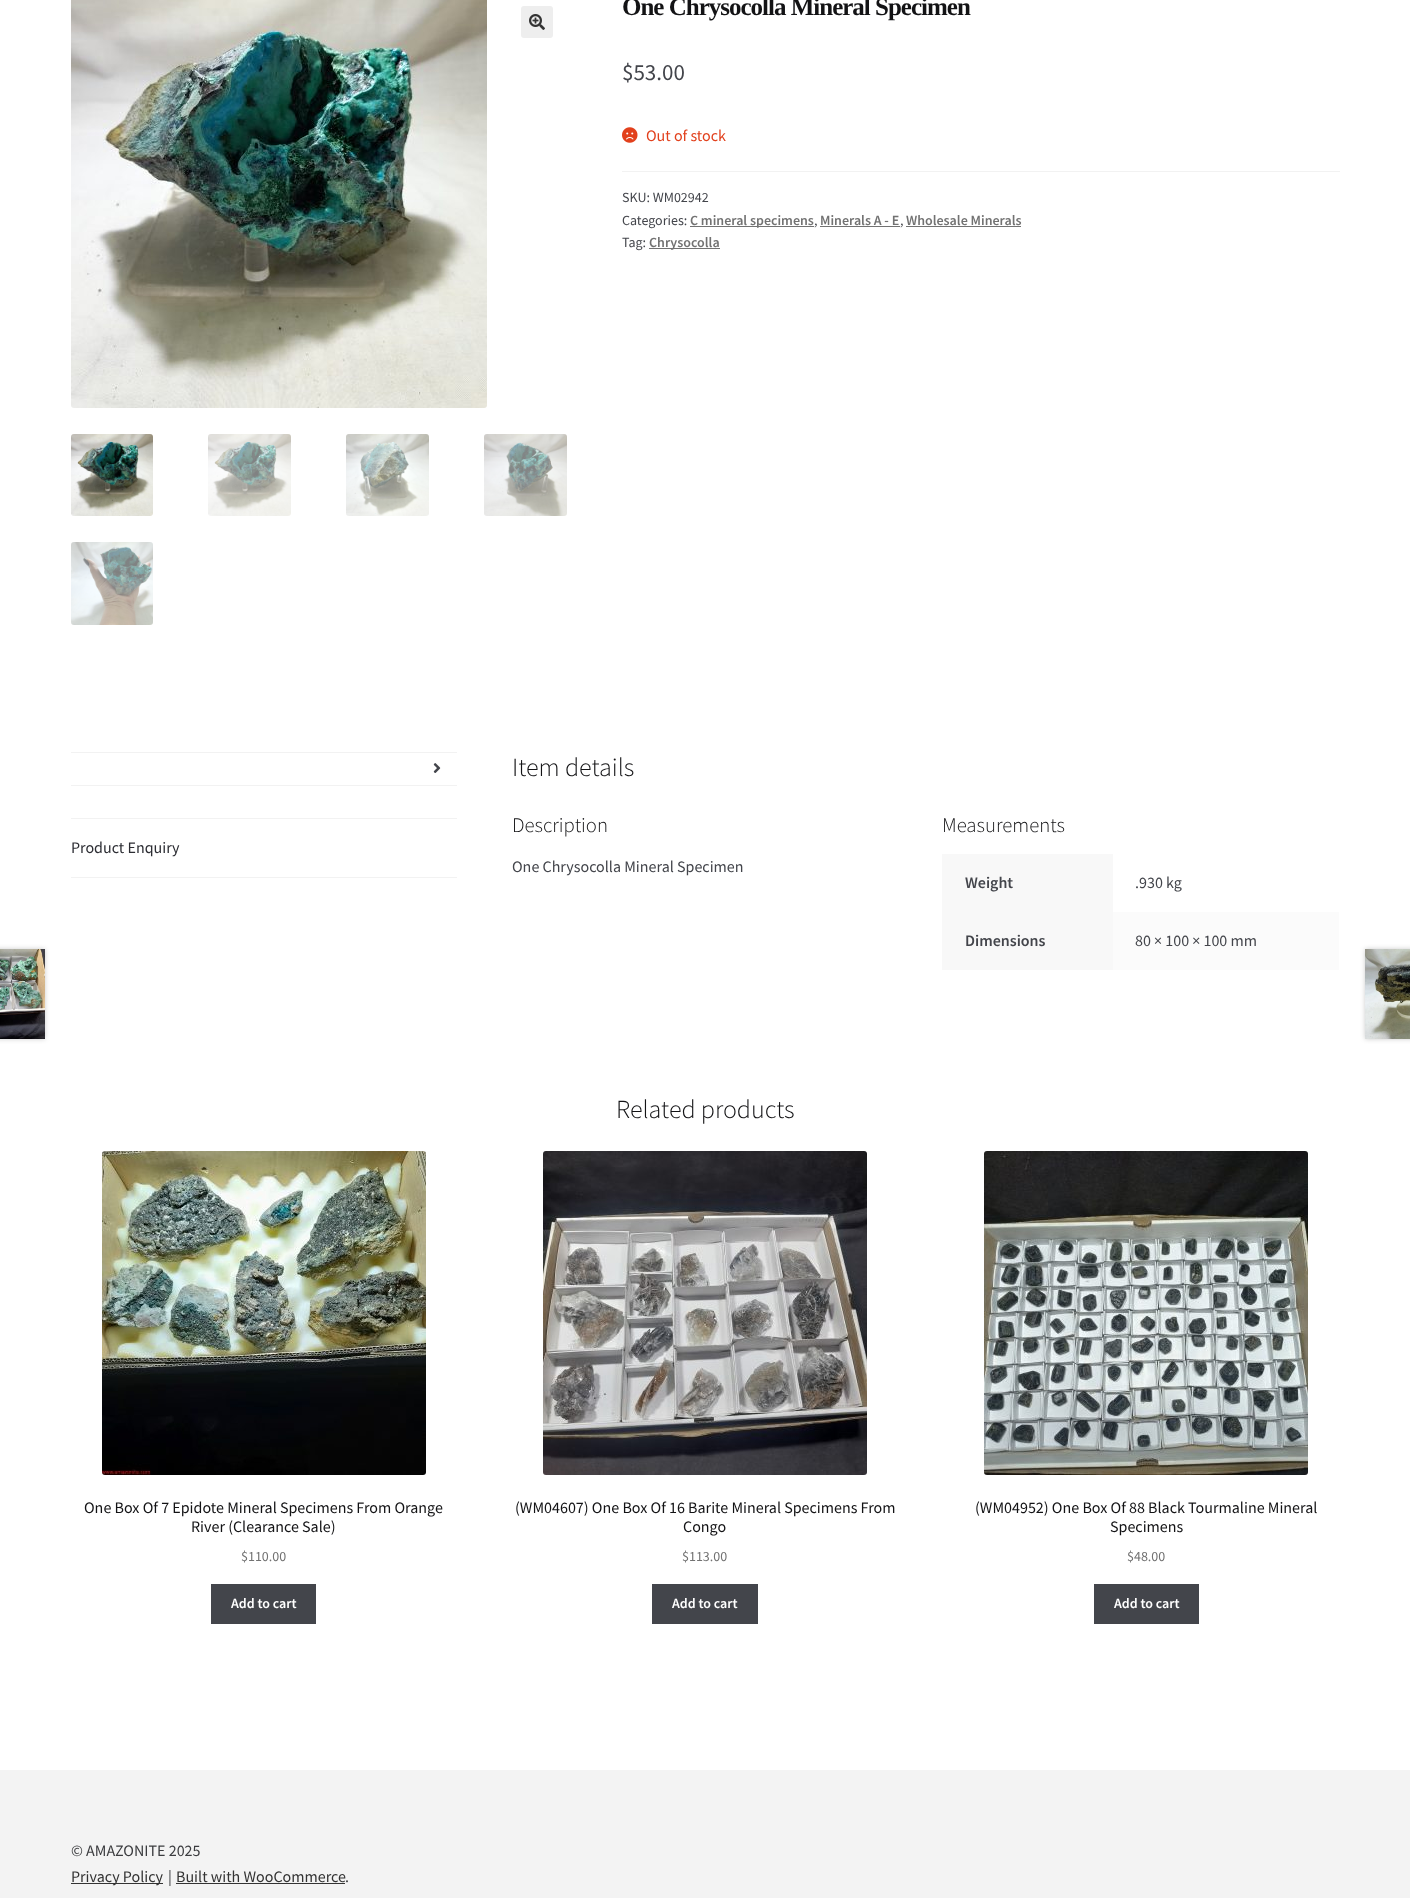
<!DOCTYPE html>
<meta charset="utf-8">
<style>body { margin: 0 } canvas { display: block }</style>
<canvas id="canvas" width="1410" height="1898"></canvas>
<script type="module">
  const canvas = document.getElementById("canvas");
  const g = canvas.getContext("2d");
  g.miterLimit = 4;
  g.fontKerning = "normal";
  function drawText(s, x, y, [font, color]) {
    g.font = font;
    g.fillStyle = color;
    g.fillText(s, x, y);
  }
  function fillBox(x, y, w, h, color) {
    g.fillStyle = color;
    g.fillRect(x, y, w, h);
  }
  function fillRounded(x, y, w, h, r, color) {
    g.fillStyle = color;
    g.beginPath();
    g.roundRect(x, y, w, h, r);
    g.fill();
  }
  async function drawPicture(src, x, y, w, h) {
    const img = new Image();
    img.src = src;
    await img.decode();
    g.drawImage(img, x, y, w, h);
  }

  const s1 = ["bold 25px Liberation Serif", "#131315"];
  const s2 = ["23px Source Sans Pro", "#43454B"];
  const s3 = ["16px Source Sans Pro", "#E2401C"];
  const s4 = ["14px Source Sans Pro", "#43454B"];
  const s5 = ["600 14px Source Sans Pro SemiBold", "#727272"];
  const s6 = ["16px Source Sans Pro", "#2C2D33"];
  const s7 = ["300 26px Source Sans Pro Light", "#131315"];
  const s8 = ["300 20.75px Source Sans Pro Light", "#131315"];
  const s9 = ["16px Source Sans Pro", "#43454B"];
  const s10 = ["600 16px Source Sans Pro SemiBold", "#43454B"];
  const s11 = ["16px Source Sans Pro", "#131315"];
  const s12 = ["14px Source Sans Pro", "#727272"];
  const s13 = ["600 14px Source Sans Pro SemiBold", "#FFFFFF"];
  const s14 = ["16px Source Sans Pro", "#3B3C3F"];
  const s15 = ["16px Source Sans Pro", "#333333"];

  fillBox(0, 0, 1410, 1898, "#FFFFFF");
  await drawPicture("pic1.png", 71, 0, 416, 408);
  fillRounded(521, 6, 32, 32, 3, "#EEEEEE");
  await drawPicture("pic2.png", 529, 14, 16, 16);
  await drawPicture("pic3.png", 71, 434, 82, 82);
  await drawPicture("pic4.png", 208, 434, 83, 82);
  await drawPicture("pic5.png", 346, 434, 83, 82);
  await drawPicture("pic6.png", 484, 434, 83, 82);
  await drawPicture("pic7.png", 71, 542, 82, 83);
  g.letterSpacing = "-1px";
  drawText("One Chrysocolla Mineral Specimen", 622, 15, s1);
  g.letterSpacing = "0px";
  drawText("$53.00", 622, 80, s2);
  await drawPicture("pic8.png", 622, 127, 16, 16);
  drawText("Out of stock", 646, 141, s3);
  fillBox(622, 171, 718, 1, "#F2F2F2");
  drawText("SKU: WM02942", 622, 202, s4);
  drawText("Categories:", 622, 225, s4);
  fillBox(690, 226, 124, 1, "#727272");
  drawText("C mineral specimens", 690, 225, s5);
  drawText(",", 814, 225, s4);
  drawText("Minerals A - E", 820, 225, s5);
  fillBox(820, 226, 80, 1, "#727272");
  drawText(",", 900, 225, s4);
  drawText("Wholesale Minerals", 906, 225, s5);
  fillBox(906, 226, 115, 1, "#727272");
  drawText("Tag:", 622, 247, s4);
  fillBox(649, 248, 71, 1, "#727272");
  drawText("Chrysocolla", 649, 247, s5);
  fillBox(71, 752, 386, 1, "#F2F2F2");
  fillBox(71, 785, 386, 1, "#F2F2F2");
  await drawPicture("pic9.png", 433, 763, 8, 10);
  fillBox(71, 818, 386, 1, "#F2F2F2");
  fillBox(71, 877, 386, 1, "#F2F2F2");
  drawText("Product Enquiry", 71, 853, s6);
  drawText("Item details", 512, 776, s7);
  drawText("Description", 512, 832, s8);
  drawText("One Chrysocolla Mineral Specimen", 512, 872, s9);
  drawText("Measurements", 942, 832, s8);
  fillBox(942, 854, 171, 116, "#F8F8F8");
  drawText("Weight", 965, 888, s10);
  drawText(".930 kg", 1135, 888, s9);
  drawText("Dimensions", 965, 946, s10);
  fillBox(1113, 912, 226, 58, "#FBFBFB");
  drawText("80 × 100 × 100 mm", 1135, 946, s9);
  g.fillStyle = "rgba(0, 0, 0, 0.2)";
  g.filter = "blur(2.5px)";
  g.beginPath();
  g.rect(-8, 949, 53, 90);
  g.fill();
  g.filter = "none";
  await drawPicture("pic10.png", 0, 949, 45, 90);
  g.filter = "blur(2.5px)";
  g.beginPath();
  g.rect(1365, 949, 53, 90);
  g.fill();
  g.filter = "none";
  await drawPicture("pic11.png", 1365, 949, 45, 90);
  drawText("Related products", 616, 1118, s7);
  await drawPicture("pic12.png", 102, 1151, 324, 324);
  drawText("One Box Of 7 Epidote Mineral Specimens From Orange", 84, 1513, s11);
  drawText("River (Clearance Sale)", 191, 1532, s11);
  drawText("$110.00", 241, 1561, s12);
  fillBox(211, 1584, 105, 40, "#43454B");
  drawText("Add to cart", 231, 1608, s13);
  await drawPicture("pic13.png", 543, 1151, 324, 324);
  drawText("(WM04607) One Box Of 16 Barite Mineral Specimens From", 515, 1513, s11);
  drawText("Congo", 683, 1532, s11);
  drawText("$113.00", 682, 1561, s12);
  fillBox(652, 1584, 106, 40, "#43454B");
  drawText("Add to cart", 672, 1608, s13);
  await drawPicture("pic14.png", 984, 1151, 324, 324);
  drawText("(WM04952) One Box Of 88 Black Tourmaline Mineral", 975, 1513, s11);
  drawText("Specimens", 1110, 1532, s11);
  drawText("$48.00", 1127, 1561, s12);
  fillBox(1094, 1584, 105, 40, "#43454B");
  drawText("Add to cart", 1114, 1608, s13);
  fillBox(0, 1770, 1410, 128, "#F3F3F3");
  drawText("© AMAZONITE 2025", 71, 1856, s14);
  fillBox(71, 1883, 92, 1, "#333333");
  drawText("Privacy Policy", 71, 1882, s15);
  drawText("|", 168, 1882, s14);
  drawText("Built with WooCommerce", 176, 1882, s15);
  fillBox(176, 1883, 169, 1, "#333333");
  drawText(".", 345, 1882, s14);
</script>
